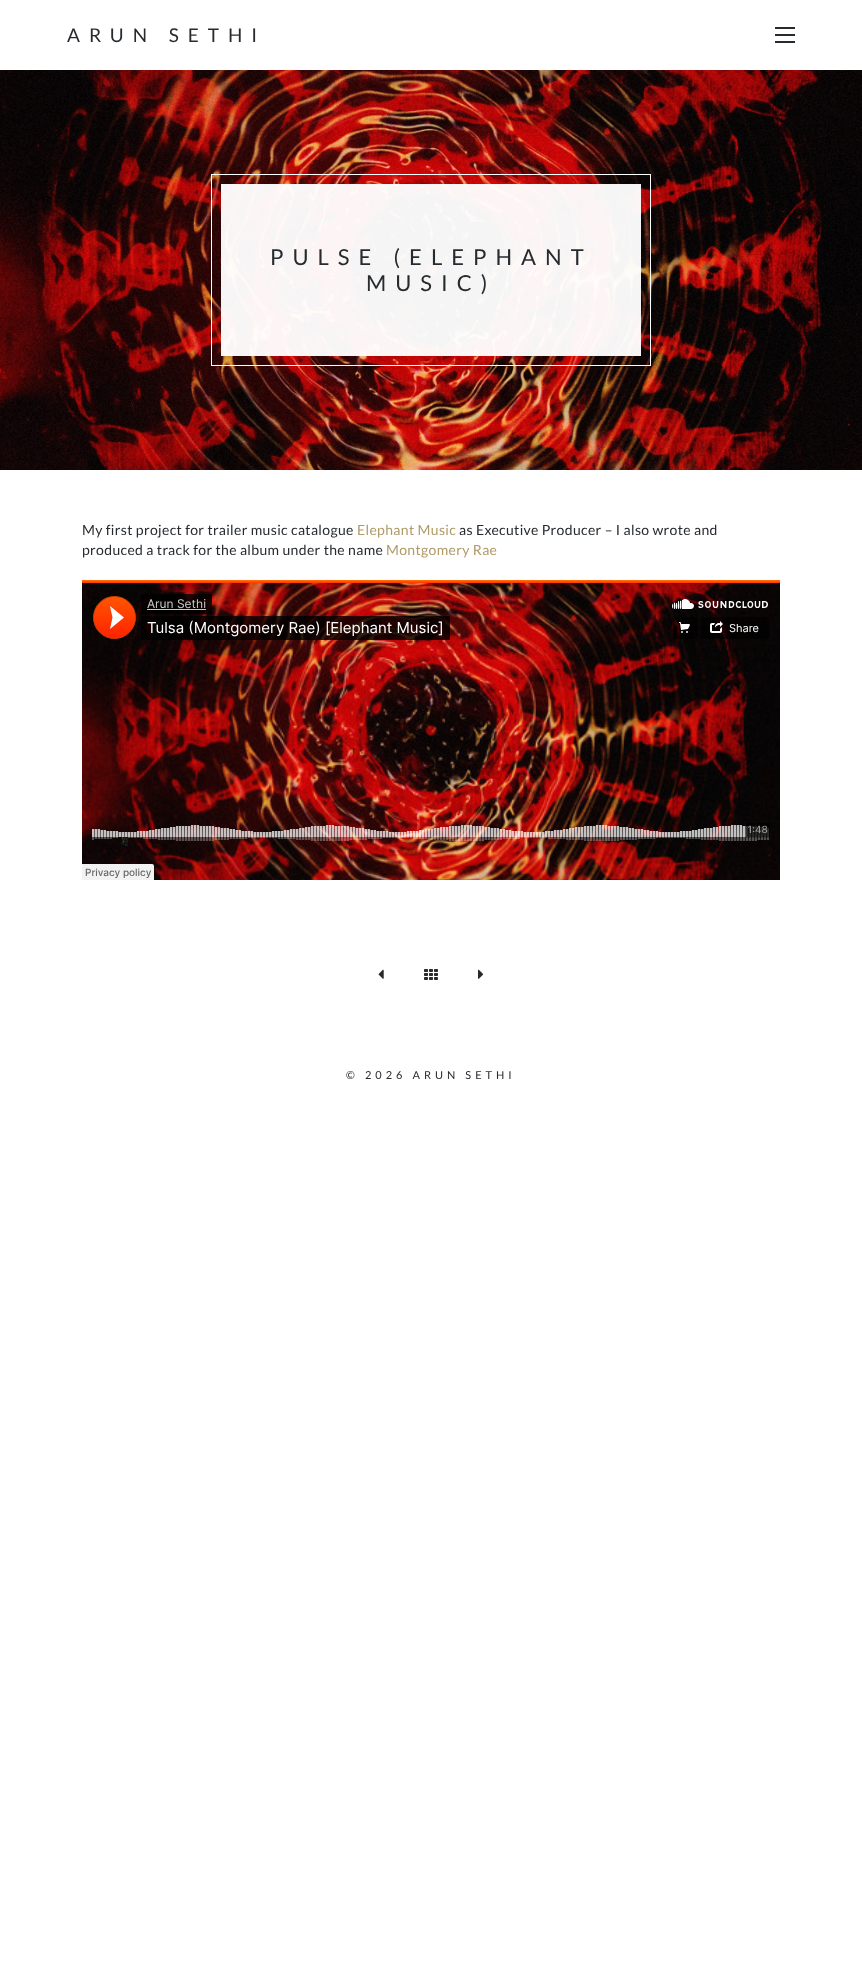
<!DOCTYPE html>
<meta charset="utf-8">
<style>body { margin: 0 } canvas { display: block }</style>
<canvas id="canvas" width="862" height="1965"></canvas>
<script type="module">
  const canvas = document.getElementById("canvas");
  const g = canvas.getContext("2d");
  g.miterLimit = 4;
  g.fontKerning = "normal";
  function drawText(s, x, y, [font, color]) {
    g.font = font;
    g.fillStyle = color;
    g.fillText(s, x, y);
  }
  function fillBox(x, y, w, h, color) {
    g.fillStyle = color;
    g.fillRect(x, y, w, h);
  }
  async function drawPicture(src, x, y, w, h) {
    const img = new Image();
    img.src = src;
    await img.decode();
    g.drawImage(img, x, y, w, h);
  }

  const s1 = ["19px Lato", "#272B2F"];
  const s2 = ["22px Lato", "#272B2F"];
  const s3 = ["14px Lato", "#272B2F"];
  const s4 = ["14px Lato", "#B09A68"];
  const s5 = ["11px Lato", "#272B2F"];

  fillBox(0, 0, 862, 1965, "#FFFFFF");
  g.letterSpacing = "9px";
  drawText("ARUN SETHI", 67, 42, s1);
  fillBox(775, 34, 20, 2, "#272B2F");
  fillBox(775, 27, 20, 2, "#272B2F");
  fillBox(775, 41, 20, 2, "#272B2F");
  await drawPicture("pic1.png", 0, 70, 862, 400);
  fillBox(221, 184, 420, 172, "rgba(255, 255, 255, 0.96)");
  g.strokeStyle = "#FFFFFF";
  g.strokeRect(211.5, 174.5, 439, 191);
  drawText("PULSE (ELEPHANT", 270, 265, s2);
  drawText("MUSIC)", 366, 291, s2);
  g.letterSpacing = "0.35px";
  drawText("My first project for trailer music catalogue", 82, 535, s3);
  drawText("Elephant Music", 357, 535, s4);
  drawText("as Executive Producer – I also wrote and", 459, 535, s3);
  drawText("produced a track for the album under the name", 82, 555, s3);
  drawText("Montgomery Rae", 386, 555, s4);
  await drawPicture("pic2.png", 82, 580, 698, 300);
  await drawPicture("pic3.png", 378, 969, 6, 10);
  await drawPicture("pic4.png", 424, 969, 14, 11);
  await drawPicture("pic5.png", 478, 969, 6, 10);
  g.letterSpacing = "4px";
  drawText("© 2026 ARUN SETHI", 346, 1079, s5);
</script>
